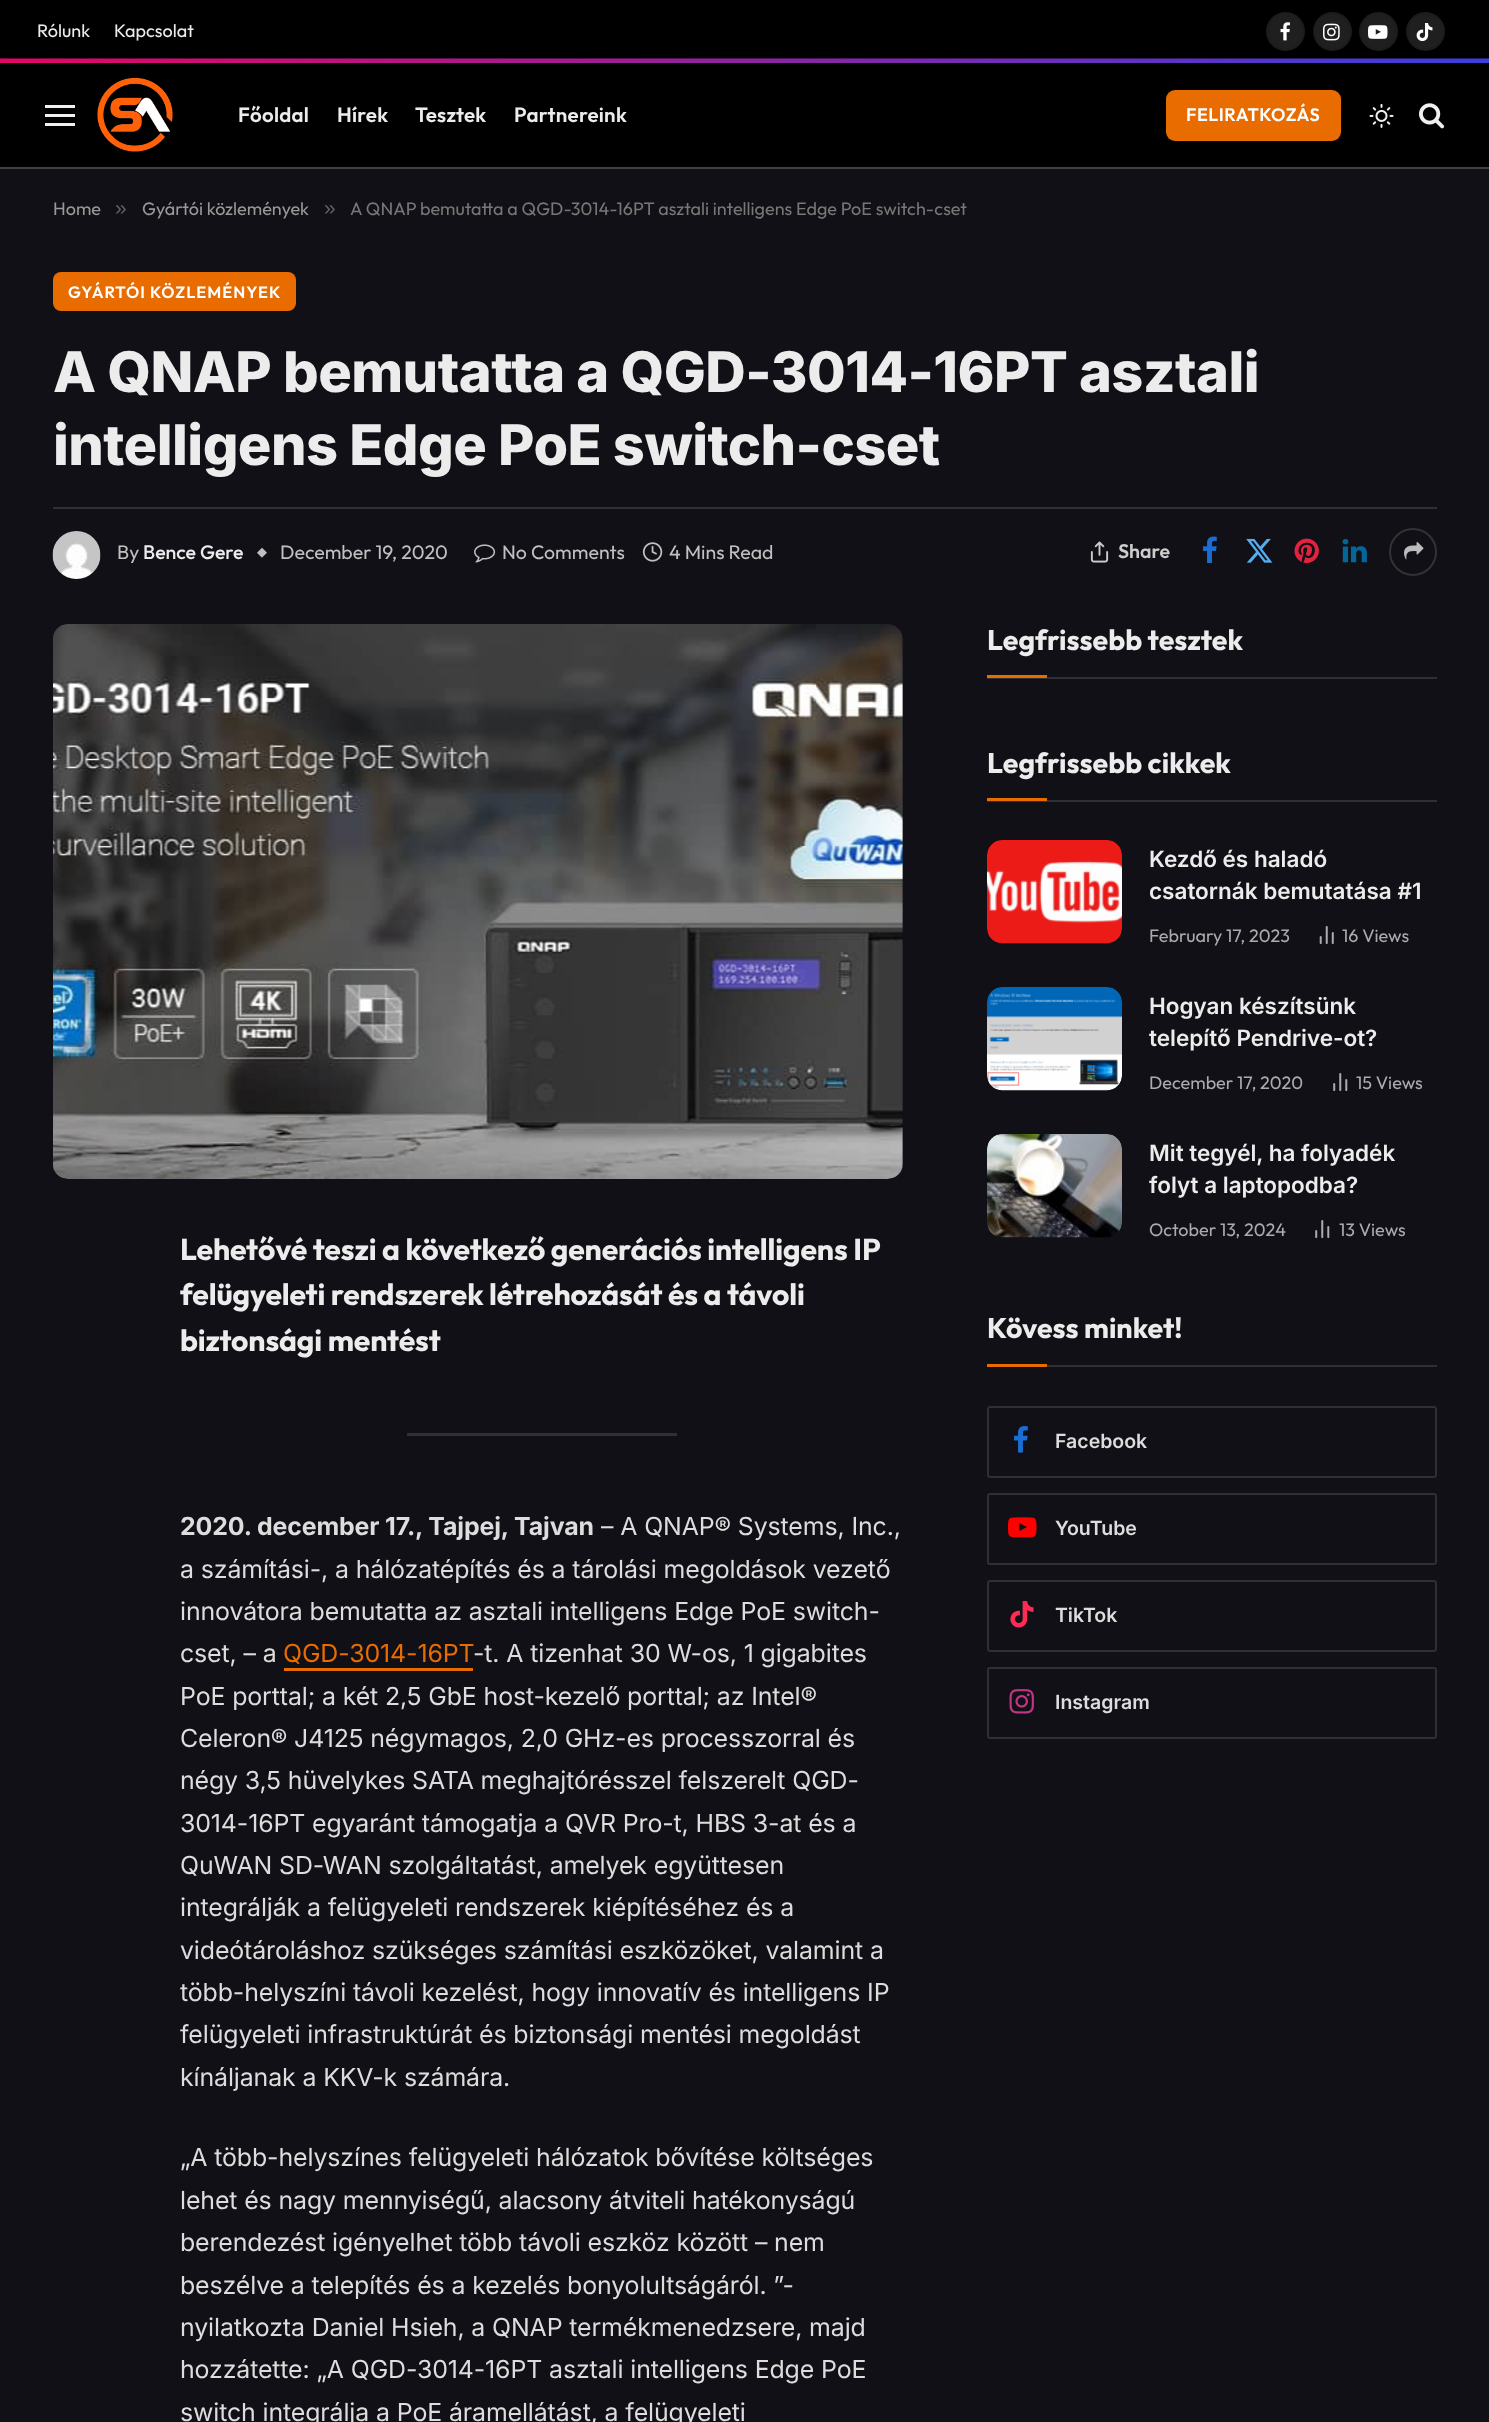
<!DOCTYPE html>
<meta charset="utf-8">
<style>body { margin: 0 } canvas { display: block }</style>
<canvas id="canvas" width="1489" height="2422"></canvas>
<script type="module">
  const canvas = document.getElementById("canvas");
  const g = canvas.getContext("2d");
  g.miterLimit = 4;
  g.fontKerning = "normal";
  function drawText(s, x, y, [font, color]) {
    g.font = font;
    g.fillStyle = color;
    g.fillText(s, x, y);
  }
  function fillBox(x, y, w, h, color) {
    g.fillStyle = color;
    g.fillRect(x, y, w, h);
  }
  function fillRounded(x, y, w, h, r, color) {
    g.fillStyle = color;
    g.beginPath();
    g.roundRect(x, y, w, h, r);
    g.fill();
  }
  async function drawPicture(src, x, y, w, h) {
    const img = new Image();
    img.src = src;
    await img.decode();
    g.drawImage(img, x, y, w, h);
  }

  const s1 = ["18px Outfit", "#ECECEC"];
  const s2 = ["600 20.5px Outfit", "#ECECEC"];
  const s3 = ["600 18px Outfit", "#FFFFFF"];
  const s4 = ["18px Outfit", "#999999"];
  const s5 = ["21px Liberation Sans", "#626264"];
  const s6 = ["18px Outfit", "#777777"];
  const s7 = ["600 16.5px Outfit", "#FFFFFF"];
  const s8 = ["800 56px Inter", "#ECECEC"];
  const s9 = ["19.5px Outfit", "#C0C0C0"];
  const s10 = ["500 19.5px Outfit", "#ECECEC"];
  const s11 = ["13px DejaVu Sans", "#C0C0C0"];
  const s12 = ["600 19.5px Outfit", "#CCCCCC"];
  const s13 = ["bold 30.1px Outfit", "#ECECEC"];
  const s14 = ["bold 24.9px Inter", "#DDDDDD"];
  const s15 = ["24.9px Inter", "#DDDDDD"];
  const s16 = ["24.9px Inter", "#E86C00"];
  const s17 = ["bold 28.5px Outfit", "#ECECEC"];
  const s18 = ["600 22.5px Inter", "#ECECEC"];
  const s19 = ["18px Outfit", "#ABABAD"];
  const s20 = ["600 19.5px Inter", "#DDDDDD"];

  fillBox(0, 0, 1489, 2422, "#101016");
  fillBox(0, 0, 1489, 59, "#000000");
  await drawPicture("pic1.png", 0, 58, 1489, 5);
  drawText("Rólunk", 37, 37, s1);
  drawText("Kapcsolat", 114, 37, s1);
  g.fillStyle = "#1F1F1F";
  g.beginPath();
  g.arc(1285.5, 31.5, 19.5, 0, Math.PI * 2);
  g.fill();
  g.beginPath();
  g.arc(1285.5, 31.5, 18.5, 0, Math.PI * 2);
  g.strokeStyle = "rgba(0, 0, 0, 0.09)";
  g.lineWidth = 2;
  g.stroke();
  await drawPicture("pic2.png", 1280, 22, 10, 19);
  g.beginPath();
  g.arc(1332.5, 31.5, 19.5, 0, Math.PI * 2);
  g.fill();
  g.beginPath();
  g.arc(1332.5, 31.5, 18.5, 0, Math.PI * 2);
  g.stroke();
  await drawPicture("pic3.png", 1323, 23, 17, 18);
  g.beginPath();
  g.arc(1378.5, 31.5, 19.5, 0, Math.PI * 2);
  g.fill();
  g.beginPath();
  g.arc(1378.5, 31.5, 18.5, 0, Math.PI * 2);
  g.stroke();
  await drawPicture("pic4.png", 1368, 25, 20, 14);
  g.beginPath();
  g.arc(1425.5, 31.5, 19.5, 0, Math.PI * 2);
  g.fill();
  g.beginPath();
  g.arc(1425.5, 31.5, 18.5, 0, Math.PI * 2);
  g.stroke();
  await drawPicture("pic5.png", 1416, 23, 17, 19);
  fillBox(0, 63, 1489, 104, "#000000");
  fillBox(0, 167, 1489, 2, "#3F3F3F");
  fillBox(45, 123, 30, 3, "#F0F0F0");
  fillBox(45, 105, 30, 3, "#F0F0F0");
  fillBox(45, 114, 30, 3, "#F0F0F0");
  await drawPicture("pic6.png", 97, 78, 76, 74);
  g.letterSpacing = "0.25px";
  drawText("Főoldal", 238, 122, s2);
  drawText("Hírek", 337, 122, s2);
  drawText("Tesztek", 415, 122, s2);
  drawText("Partnereink", 514, 122, s2);
  fillRounded(1166, 90, 175, 51, 9, "#E86C00");
  g.letterSpacing = "0.5px";
  drawText("FELIRATKOZÁS", 1186, 121, s3);
  await drawPicture("pic7.png", 1369, 103, 25, 25);
  await drawPicture("pic8.png", 1419, 103, 26, 26);
  g.letterSpacing = "0px";
  drawText("Home", 53, 215, s4);
  drawText("»", 115, 215, s5);
  drawText("Gyártói közlemények", 142, 215, s4);
  drawText("»", 324, 215, s5);
  drawText("A QNAP bemutatta a QGD-3014-16PT asztali intelligens Edge PoE switch-cset", 350, 215, s6);
  fillRounded(53, 272, 243, 39, 8, "#E86C00");
  g.letterSpacing = "1px";
  drawText("GYÁRTÓI KÖZLEMÉNYEK", 68, 298, s7);
  g.letterSpacing = "-0.55px";
  drawText("A QNAP bemutatta a QGD-3014-16PT asztali", 53, 392, s8);
  drawText("intelligens Edge PoE switch-cset", 53, 465, s8);
  fillBox(53, 507, 1384, 2, "#2F2F34");
  await drawPicture("pic9.png", 52, 531, 49, 48);
  g.letterSpacing = "0px";
  drawText("By", 117, 559, s9);
  drawText("Bence Gere", 143, 559, s10);
  drawText("◆", 257, 556, s11);
  drawText("December 19, 2020", 280, 559, s9);
  await drawPicture("pic10.png", 474, 544, 22, 19);
  drawText("No Comments", 502, 559, s9);
  await drawPicture("pic11.png", 642, 542, 21, 20);
  drawText("4 Mins Read", 669, 559, s9);
  await drawPicture("pic12.png", 1090, 541, 19, 22);
  drawText("Share", 1118, 558, s12);
  await drawPicture("pic13.png", 1203, 536, 14, 27);
  await drawPicture("pic14.png", 1246, 538, 27, 25);
  await drawPicture("pic15.png", 1294, 538, 25, 25);
  await drawPicture("pic16.png", 1342, 538, 25, 25);
  g.beginPath();
  g.arc(1413, 552, 23, 0, Math.PI * 2);
  g.strokeStyle = "#333333";
  g.stroke();
  await drawPicture("pic17.png", 1404, 542, 20, 18);
  await drawPicture("pic18.png", 53, 624, 850, 555);
  g.letterSpacing = "-0.12px";
  drawText("Lehetővé teszi a következő generációs intelligens IP", 180, 1260, s13);
  drawText("felügyeleti rendszerek létrehozását és a távoli", 180, 1305, s13);
  drawText("biztonsági mentést", 180, 1351, s13);
  fillBox(407, 1433, 270, 3, "#2F2F34");
  drawText("2020. december 17., Tajpej, Tajvan", 180, 1535, s14);
  drawText("– A QNAP® Systems, Inc.,", 601, 1535, s15);
  drawText("a számítási-, a hálózatépítés és a tárolási megoldások vezető", 180, 1578, s15);
  drawText("innovátora bemutatta az asztali intelligens Edge PoE switch-", 180, 1620, s15);
  drawText("cset, – a", 180, 1662, s15);
  drawText("QGD-3014-16PT", 283, 1662, s16);
  fillBox(284, 1668, 189, 3, "#E86C00");
  drawText("-t. A tizenhat 30 W-os, 1 gigabites", 473, 1662, s15);
  drawText("PoE porttal; a két 2,5 GbE host-kezelő porttal; az Intel®", 180, 1705, s15);
  drawText("Celeron® J4125 négymagos, 2,0 GHz-es processzorral és", 180, 1747, s15);
  drawText("négy 3,5 hüvelykes SATA meghajtórésszel felszerelt QGD-", 180, 1789, s15);
  drawText("3014-16PT egyaránt támogatja a QVR Pro-t, HBS 3-at és a", 180, 1832, s15);
  drawText("QuWAN SD-WAN szolgáltatást, amelyek együttesen", 180, 1874, s15);
  drawText("integrálják a felügyeleti rendszerek kiépítéséhez és a", 180, 1916, s15);
  drawText("videótároláshoz szükséges számítási eszközöket, valamint a", 180, 1959, s15);
  drawText("több-helyszíni távoli kezelést, hogy innovatív és intelligens IP", 180, 2001, s15);
  drawText("felügyeleti infrastruktúrát és biztonsági mentési megoldást", 180, 2043, s15);
  drawText("kínáljanak a KKV-k számára.", 180, 2086, s15);
  drawText("„A több-helyszínes felügyeleti hálózatok bővítése költséges", 180, 2166, s15);
  drawText("lehet és nagy mennyiségű, alacsony átviteli hatékonyságú", 180, 2209, s15);
  drawText("berendezést igényelhet több távoli eszköz között – nem", 180, 2251, s15);
  drawText("beszélve a telepítés és a kezelés bonyolultságáról. ”-", 180, 2294, s15);
  drawText("nyilatkozta Daniel Hsieh, a QNAP termékmenedzsere, majd", 180, 2336, s15);
  drawText("hozzátette: „A QGD-3014-16PT asztali intelligens Edge PoE", 180, 2378, s15);
  drawText("switch integrálja a PoE áramellátást, a felügyeleti", 180, 2421, s15);
  fillBox(987, 677, 450, 2, "#2F2F34");
  g.letterSpacing = "0px";
  drawText("Legfrissebb tesztek", 987, 650, s17);
  fillBox(987, 675, 60, 3, "#E86C00");
  fillBox(987, 800, 450, 2, "#2F2F34");
  drawText("Legfrissebb cikkek", 987, 773, s17);
  fillBox(987, 798, 60, 3, "#E86C00");
  await drawPicture("pic19.png", 987, 840, 135, 104);
  drawText("Kezdő és haladó", 1149, 867, s18);
  drawText("csatornák bemutatása #1", 1149, 899, s18);
  drawText("February 17, 2023", 1149, 942, s19);
  await drawPicture("pic20.png", 1319, 926, 15, 19);
  drawText("16 Views", 1342, 942, s19);
  await drawPicture("pic21.png", 987, 987, 135, 104);
  drawText("Hogyan készítsünk", 1149, 1014, s18);
  drawText("telepítő Pendrive-ot?", 1149, 1046, s18);
  drawText("December 17, 2020", 1149, 1089, s19);
  await drawPicture("pic22.png", 1333, 1073, 15, 19);
  drawText("15 Views", 1356, 1089, s19);
  await drawPicture("pic23.png", 987, 1134, 135, 104);
  drawText("Mit tegyél, ha folyadék", 1149, 1161, s18);
  drawText("folyt a laptopodba?", 1149, 1193, s18);
  drawText("October 13, 2024", 1149, 1236, s19);
  await drawPicture("pic22.png", 1315, 1220, 15, 19);
  drawText("13 Views", 1339, 1236, s19);
  fillBox(1047, 1365, 390, 2, "#2F2F34");
  drawText("Kövess minket!", 987, 1338, s17);
  fillBox(987, 1364, 60, 3, "#E86C00");
  g.beginPath();
  g.roundRect(988, 1407, 448, 70, 2);
  g.strokeStyle = "#2F2F34";
  g.stroke();
  await drawPicture("pic24.png", 1014, 1426, 14, 27);
  drawText("Facebook", 1055, 1448, s20);
  g.beginPath();
  g.roundRect(988, 1494, 448, 70, 2);
  g.stroke();
  await drawPicture("pic25.png", 1008, 1517, 29, 21);
  drawText("YouTube", 1055, 1535, s20);
  g.beginPath();
  g.roundRect(988, 1581, 448, 70, 2);
  g.stroke();
  await drawPicture("pic26.png", 1010, 1601, 24, 27);
  drawText("TikTok", 1055, 1622, s20);
  g.beginPath();
  g.roundRect(988, 1668, 448, 70, 2);
  g.stroke();
  await drawPicture("pic27.png", 1009, 1689, 25, 25);
  drawText("Instagram", 1055, 1709, s20);
</script>
